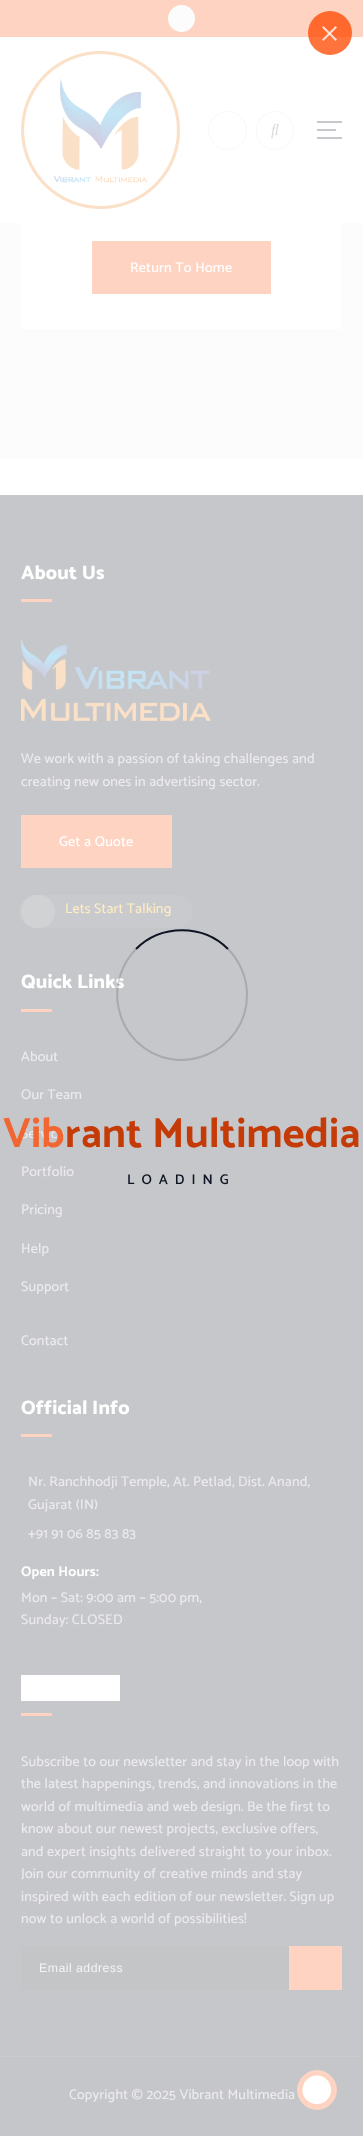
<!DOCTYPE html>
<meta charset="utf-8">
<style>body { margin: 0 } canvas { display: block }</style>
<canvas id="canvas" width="363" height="2136"></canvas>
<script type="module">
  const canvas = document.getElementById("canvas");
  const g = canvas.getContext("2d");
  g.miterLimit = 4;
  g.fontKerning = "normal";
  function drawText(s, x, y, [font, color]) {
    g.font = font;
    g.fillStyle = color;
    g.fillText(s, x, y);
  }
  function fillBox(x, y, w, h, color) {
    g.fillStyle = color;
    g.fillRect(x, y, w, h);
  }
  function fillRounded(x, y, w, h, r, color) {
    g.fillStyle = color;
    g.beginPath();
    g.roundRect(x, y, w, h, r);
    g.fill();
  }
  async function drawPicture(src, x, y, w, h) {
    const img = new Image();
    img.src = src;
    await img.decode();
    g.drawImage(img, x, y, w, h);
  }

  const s1 = ["500 14.1px Catamaran", "#FFFFFF"];
  const s2 = ["800 19.5px Catamaran", "#FFFFFF"];
  const s3 = ["500 14.1px Catamaran", "#ECEAF0"];
  const s4 = ["bold 42.25px Catamaran", "#F16631"];
  const s5 = ["bold 42.25px Catamaran", "#C53B08"];
  const s6 = ["600 14.1px Catamaran", "#0E1422"];
  const s7 = ["500 14.1px Catamaran", "#FCEBC3"];
  const s8 = ["bold 14.1px Catamaran", "#FFFFFF"];
  const s9 = ["12.25px Liberation Sans", "#F4F4F4"];

  fillBox(0, 0, 363, 2136, "#FFFFFF");
  fillBox(0, 0, 363, 37, "#FFD3C2");
  g.fillStyle = "#FCFCFC";
  g.beginPath();
  g.arc(181.5, 18.5, 13.5, 0, Math.PI * 2);
  g.fill();
  await drawPicture("pic1.png", 21, 51, 159, 158);
  g.beginPath();
  g.arc(227.5, 130.5, 19, 0, Math.PI * 2);
  g.strokeStyle = "#F9F9F9";
  g.stroke();
  g.beginPath();
  g.roundRect(256.5, 111.5, 37, 38, 18.5);
  g.stroke();
  await drawPicture("pic2.png", 271, 123, 8, 16);
  fillBox(317, 121, 25, 2, "#C5C7CA");
  fillBox(317, 129, 19, 2, "#C5C7CA");
  fillBox(317, 137, 25, 2, "#C5C7CA");
  fillBox(0, 223, 363, 236, "#FCFCFC");
  fillBox(21, 223, 321, 106, "#FFFFFF");
  fillBox(92, 241, 179, 53, "#FFD3C2");
  g.letterSpacing = "0.25px";
  drawText("Return To Home", 130, 272, s1);
  g.fillStyle = "rgba(255, 71, 0, 0.76)";
  g.beginPath();
  g.arc(330, 33, 22, 0, Math.PI * 2);
  g.fill();
  g.fillStyle = "rgba(255, 255, 255, 0.76)";
  g.beginPath();
  g.moveTo(322, 39.5);
  g.lineTo(335.5, 26);
  g.lineTo(337, 27.5);
  g.lineTo(323.5, 41);
  g.closePath();
  g.fill();
  g.beginPath();
  g.moveTo(335.5, 41);
  g.lineTo(322, 27.5);
  g.lineTo(323.5, 26);
  g.lineTo(337, 39.5);
  g.closePath();
  g.fill();
  fillBox(0, 495, 363, 1561, "#C5C7CA");
  g.beginPath();
  g.moveTo(136, 949);
  g.bezierCurveTo(161, 924, 203, 924, 228, 949);
  g.strokeStyle = "#0E1422";
  g.lineWidth = 2;
  g.stroke();
  g.letterSpacing = "0.15px";
  drawText("Quick Links", 21, 988, s2);
  g.beginPath();
  g.moveTo(228, 949);
  g.bezierCurveTo(240, 961, 247, 978, 247, 995);
  g.bezierCurveTo(247, 1052.5, 176.5, 1081.5, 136, 1041);
  g.bezierCurveTo(127, 1032, 121, 1020.5, 118.5, 1007.5);
  g.bezierCurveTo(114, 986.5, 121, 964.5, 136, 949);
  g.strokeStyle = "rgba(0, 0, 0, 0.15)";
  g.stroke();
  drawText("Service", 21, 1138, s3);
  drawText("V", 3, 1147, s4);
  drawText("i", 31, 1147, s4);
  drawText("b", 41, 1147, s4);
  drawText("rant Multimedia", 65, 1147, s5);
  g.letterSpacing = "7px";
  drawText("LOADING", 127, 1184, s6);
  g.letterSpacing = "0.15px";
  drawText("About Us", 21, 579, s2);
  fillBox(21, 599, 31, 3, "#FFD3C2");
  await drawPicture("pic3.png", 21, 637, 191, 84);
  drawText("We work with a passion of taking challenges and", 21, 763, s3);
  drawText("creating new ones in advertising sector.", 21, 786, s3);
  fillBox(21, 815, 151, 53, "#FFD3C2");
  g.letterSpacing = "0.25px";
  drawText("Get a Quote", 59, 846, s1);
  fillRounded(19, 895, 174, 33, 16.5, "#C9CACD");
  fillRounded(21, 895, 34, 33, 16.5, "#D1D2D4");
  g.letterSpacing = "0.15px";
  drawText("Lets Start Talking", 65, 913, s7);
  fillBox(21, 1009, 31, 3, "#FFD3C2");
  drawText("About", 21, 1061, s3);
  drawText("Our Team", 21, 1099, s3);
  drawText("Portfolio", 21, 1176, s3);
  drawText("Pricing", 21, 1214, s3);
  drawText("Help", 21, 1253, s3);
  drawText("Support", 21, 1291, s3);
  drawText("Contact", 21, 1345, s3);
  drawText("Official Info", 21, 1414, s2);
  fillBox(21, 1434, 31, 3, "#FFD3C2");
  drawText("Nr. Ranchhodji Temple, At. Petlad, Dist. Anand,", 28, 1486, s3);
  drawText("Gujarat (IN)", 28, 1509, s3);
  drawText("+91 91 06 85 83 83", 28, 1538, s3);
  drawText("Open Hours:", 21, 1576, s8);
  drawText("Mon – Sat: 9:00 am – 5:00 pm,", 21, 1602, s3);
  drawText("Sunday: CLOSED", 21, 1624, s3);
  fillBox(21, 1675, 99, 26, "#FFFFFF");
  fillBox(21, 1713, 31, 3, "#FFD3C2");
  drawText("Subscribe to our newsletter and stay in the loop with", 21, 1766, s3);
  drawText("the latest happenings, trends, and innovations in the", 21, 1788, s3);
  drawText("world of multimedia and web design. Be the first to", 21, 1811, s3);
  drawText("know about our newest projects, exclusive offers,", 21, 1833, s3);
  drawText("and expert insights delivered straight to your inbox.", 21, 1856, s3);
  drawText("Join our community of creative minds and stay", 21, 1878, s3);
  drawText("inspired with each edition of our newsletter. Sign up", 21, 1901, s3);
  drawText("now to unlock a world of possibilities!", 21, 1923, s3);
  fillBox(21, 1946, 268, 44, "#C4C5C7");
  g.letterSpacing = "0.5px";
  drawText("Email address", 39, 1972, s9);
  fillBox(289, 1946, 53, 44, "#FFD3C2");
  fillBox(0, 2057, 363, 79, "#C5C6C9");
  fillBox(0, 2056, 363, 1, "#CACBCD");
  g.letterSpacing = "0.15px";
  drawText("Copyright © 2025 Vibrant Multimedia", 69, 2099, s3);
  g.fillStyle = "#FFFFFF";
  g.beginPath();
  g.arc(317, 2090, 19, 0, Math.PI * 2);
  g.fill();
  g.save();
  g.beginPath();
  g.roundRect(298, 2071, 38, 38, 19);
  g.clip();
  g.beginPath();
  g.moveTo(317, 2071.5);
  g.bezierCurveTo(327, 2071.5, 335, 2080, 335, 2090);
  g.bezierCurveTo(335, 2100, 327, 2108, 317, 2108);
  g.bezierCurveTo(307, 2108, 298.5, 2100, 298.5, 2090);
  g.bezierCurveTo(298.5, 2080, 307, 2071.5, 317, 2071.5);
  g.strokeStyle = "#FFD3C2";
  g.lineWidth = 7.8;
  g.stroke();
  g.restore();
  g.beginPath();
  g.arc(317, 2090, 19.5, 0, Math.PI * 2);
  g.strokeStyle = "#FFD3C2";
  g.lineWidth = 1;
  g.stroke();
</script>
